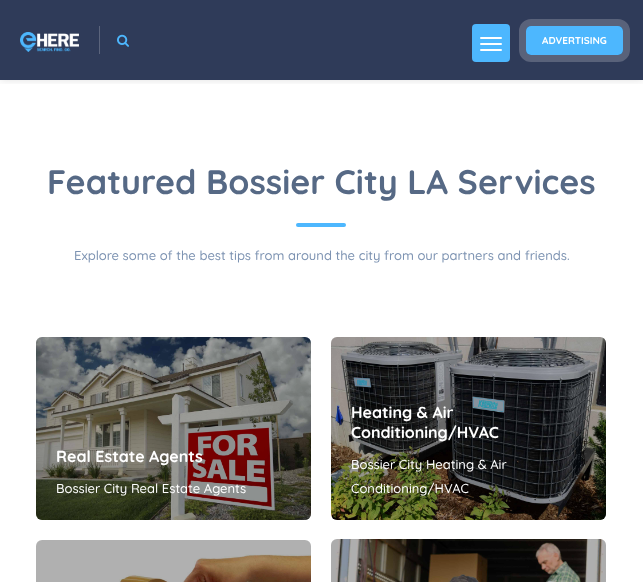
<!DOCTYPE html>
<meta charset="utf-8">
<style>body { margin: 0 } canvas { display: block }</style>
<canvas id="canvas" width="643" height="582"></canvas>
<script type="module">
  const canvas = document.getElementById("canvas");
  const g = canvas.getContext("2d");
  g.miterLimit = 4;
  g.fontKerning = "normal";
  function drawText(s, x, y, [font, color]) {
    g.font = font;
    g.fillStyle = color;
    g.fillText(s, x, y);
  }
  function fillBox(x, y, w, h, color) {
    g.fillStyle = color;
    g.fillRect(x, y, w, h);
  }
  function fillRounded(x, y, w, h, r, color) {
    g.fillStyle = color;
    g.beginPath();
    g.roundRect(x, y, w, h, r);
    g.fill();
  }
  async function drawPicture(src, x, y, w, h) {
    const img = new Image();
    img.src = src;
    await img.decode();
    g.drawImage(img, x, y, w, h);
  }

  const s1 = ["bold 10px Quicksand", "#FFFFFF"];
  const s2 = ["bold 34px Quicksand", "#566985"];
  const s3 = ["500 13px Quicksand", "#7D93B2"];
  const s4 = ["bold 16px Quicksand", "#FFFFFF"];
  const s5 = ["500 13px Quicksand", "#FFFFFF"];

  fillBox(0, 0, 643, 582, "#2F3B59");
  fillBox(0, 80, 643, 502, "#FFFFFF");
  g.save();
  g.beginPath();
  g.rect(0, 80, 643, 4);
  g.clip();
  g.fillStyle = "rgba(0, 0, 0, 0.12)";
  g.filter = "blur(4px)";
  g.beginPath();
  g.rect(0, 0, 643, 80);
  g.fill();
  g.filter = "none";
  g.restore();
  await drawPicture("pic1.png", 20, 32, 59, 20);
  fillBox(99, 26, 1, 28, "#5B647C");
  await drawPicture("pic2.png", 117, 34, 12, 13);
  fillRounded(472, 24, 38, 38, 4, "#4DB7FE");
  fillRounded(480, 37, 22, 2, 1, "#FFFFFF");
  fillRounded(480, 43, 22, 2, 1, "#FFFFFF");
  fillRounded(480, 49, 22, 2, 1, "#FFFFFF");
  g.beginPath();
  g.roundRect(522.5, 22.5, 104, 36, 8.5);
  g.strokeStyle = "#59627A";
  g.lineWidth = 7;
  g.stroke();
  fillRounded(526, 26, 97, 29, 5, "#4DB7FE");
  drawText("ADVERTISING", 542, 44, s1);
  drawText("Featured Bossier City LA Services", 47, 194, s2);
  fillRounded(296, 223, 50, 4, 2, "#4DB7FE");
  drawText("Explore some of the best tips from around the city from our partners and friends.", 74, 260, s3);
  await drawPicture("pic3.png", 36, 337, 275, 183);
  fillRounded(36, 337, 275, 183, 6, "rgba(0, 0, 0, 0.31)");
  drawText("Real Estate Agents", 56, 462, s4);
  drawText("Bossier City Real Estate Agents", 56, 493, s5);
  await drawPicture("pic4.png", 331, 337, 275, 183);
  fillRounded(331, 337, 275, 183, 6, "rgba(0, 0, 0, 0.31)");
  drawText("Heating & Air", 351, 418, s4);
  drawText("Conditioning/HVAC", 351, 438, s4);
  drawText("Bossier City Heating & Air", 351, 469, s5);
  drawText("Conditioning/HVAC", 351, 493, s5);
  await drawPicture("pic5.png", 119, 554, 192, 28);
  fillRounded(36, 540, 275, 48, 6, "rgba(0, 0, 0, 0.31)");
  await drawPicture("pic6.png", 331, 539, 275, 43);
  fillRounded(331, 539, 275, 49, 6, "rgba(0, 0, 0, 0.31)");
</script>
